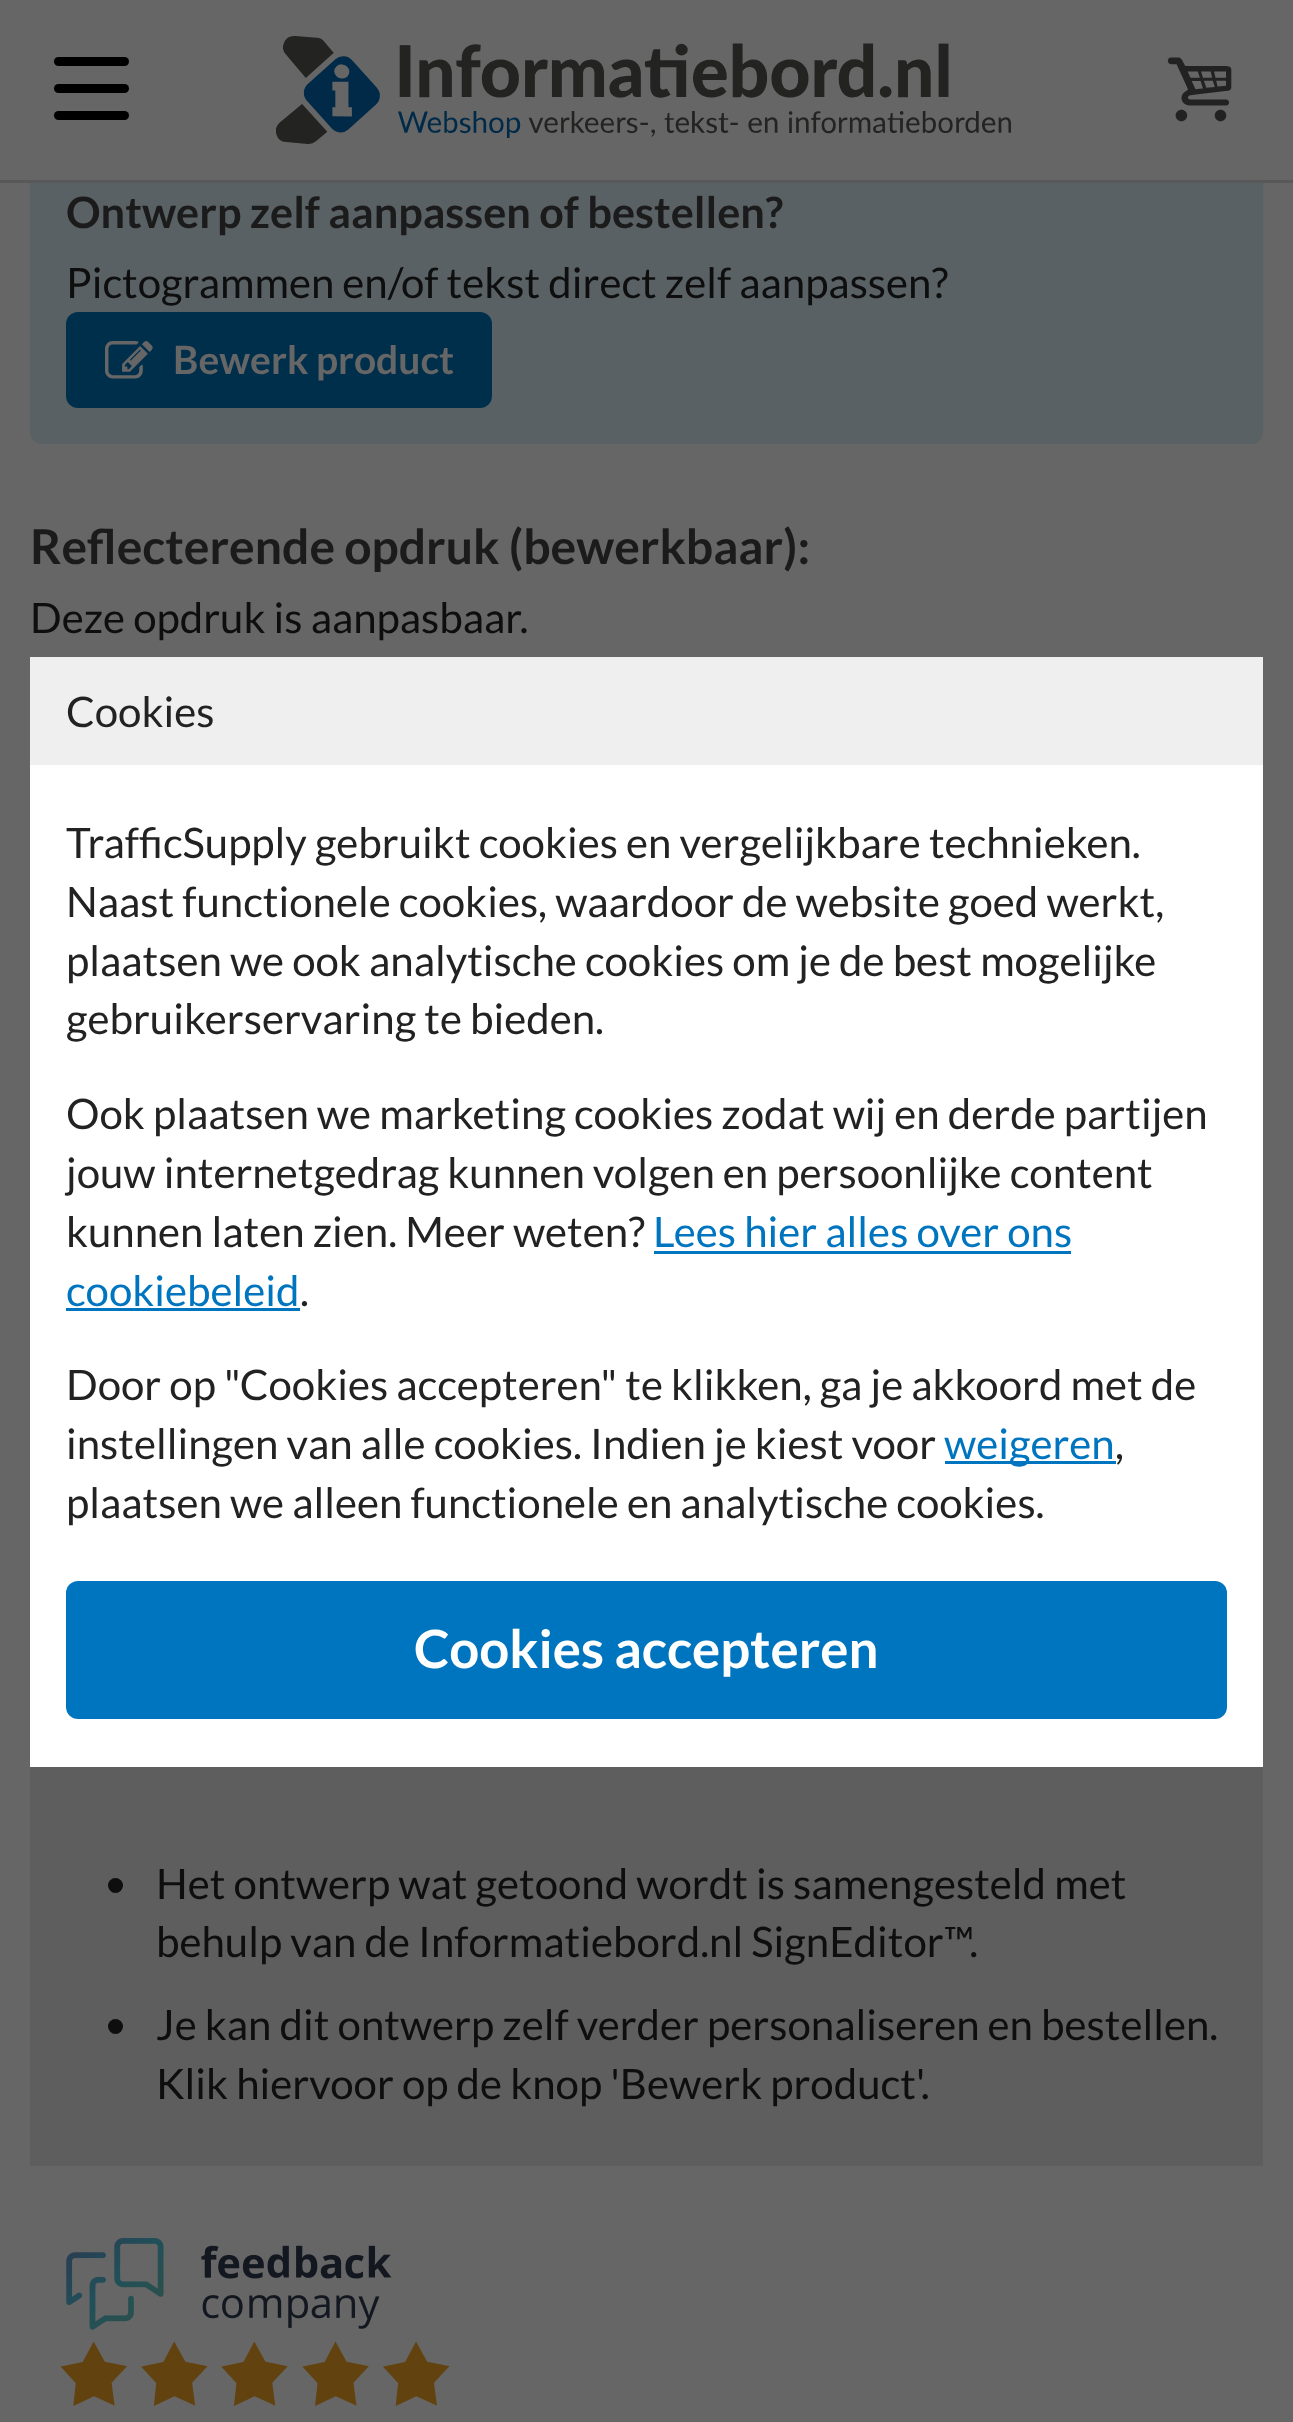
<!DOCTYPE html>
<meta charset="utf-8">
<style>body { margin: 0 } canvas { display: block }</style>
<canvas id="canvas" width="1293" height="2422"></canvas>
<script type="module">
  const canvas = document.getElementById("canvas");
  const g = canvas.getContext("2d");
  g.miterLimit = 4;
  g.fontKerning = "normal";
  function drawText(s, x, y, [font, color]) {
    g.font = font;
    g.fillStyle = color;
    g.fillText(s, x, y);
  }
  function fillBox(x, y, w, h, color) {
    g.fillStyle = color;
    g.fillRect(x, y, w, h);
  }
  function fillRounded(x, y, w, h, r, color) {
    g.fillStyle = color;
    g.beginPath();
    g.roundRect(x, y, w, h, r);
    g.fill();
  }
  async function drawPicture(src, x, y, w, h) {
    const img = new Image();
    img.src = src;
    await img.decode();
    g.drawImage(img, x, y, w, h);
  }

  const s1 = ["bold 43.25px Lato", "#1B1B1B"];
  const s2 = ["42px Lato", "#0E0E0E"];
  const s3 = ["bold 39px Lato", "#666666"];
  const s4 = ["bold 48px Lato", "#1B1B1B"];
  const s5 = ["42px Lato", "#222222"];
  const s6 = ["42px Lato", "#0075BF"];
  const s7 = ["bold 52.75px Lato", "#FFFFFF"];

  fillBox(0, 0, 1293, 2422, "#666666");
  fillRounded(30, 150, 1233, 294, 12, "#596164");
  fillBox(30, 150, 1233, 30, "#666666");
  fillBox(0, 180, 1293, 3, "#585858");
  fillRounded(54, 57, 75, 9, 4.5, "#000000");
  fillRounded(54, 111, 75, 9, 4.5, "#000000");
  fillRounded(54, 84, 75, 9, 4.5, "#000000");
  await drawPicture("pic1.png", 276, 36, 735, 108);
  await drawPicture("pic2.png", 1167, 57, 65, 65);
  drawText("Ontwerp zelf aanpassen of bestellen?", 66, 228, s1);
  drawText("Pictogrammen en/of tekst direct zelf aanpassen?", 66, 298, s2);
  fillRounded(66, 312, 426, 96, 12, "#002F4C");
  await drawPicture("pic3.png", 105, 341, 48, 38);
  drawText("Bewerk product", 173, 374, s3);
  drawText("Reflecterende opdruk (bewerkbaar):", 30, 564, s4);
  drawText("Deze opdruk is aanpasbaar.", 30, 633, s2);
  fillBox(30, 1767, 1233, 399, "#5E5E5E");
  g.fillStyle = "#0E0E0E";
  g.beginPath();
  g.arc(115.5, 1885.5, 7.5, 0, Math.PI * 2);
  g.fill();
  drawText("Het ontwerp wat getoond wordt is samengesteld met", 156, 1899, s2);
  drawText("behulp van de Informatiebord.nl SignEditor™.", 156, 1957, s2);
  g.beginPath();
  g.arc(115.5, 2026.5, 7.5, 0, Math.PI * 2);
  g.fill();
  drawText("Je kan dit ontwerp zelf verder personaliseren en bestellen.", 156, 2040, s2);
  drawText("Klik hiervoor op de knop 'Bewerk product'.", 156, 2099, s2);
  await drawPicture("pic4.png", 60, 2238, 390, 168);
  fillBox(30, 765, 1233, 1002, "#FFFFFF");
  fillBox(30, 657, 1233, 108, "#EFEFEF");
  drawText("Cookies", 66, 727, s5);
  drawText("TrafficSupply gebruikt cookies en vergelijkbare technieken.", 66, 858, s5);
  drawText("Naast functionele cookies, waardoor de website goed werkt,", 66, 917, s5);
  drawText("plaatsen we ook analytische cookies om je de best mogelijke", 66, 976, s5);
  drawText("gebruikerservaring te bieden.", 66, 1034, s5);
  drawText("Ook plaatsen we marketing cookies zodat wij en derde partijen", 66, 1129, s5);
  drawText("jouw internetgedrag kunnen volgen en persoonlijke content", 66, 1188, s5);
  drawText("kunnen laten zien. Meer weten?", 66, 1247, s5);
  drawText("Lees hier alles over ons", 653, 1247, s6);
  fillBox(654, 1251, 417, 3, "#0075BF");
  drawText("cookiebeleid", 66, 1306, s6);
  fillBox(66, 1308, 234, 3, "#0075BF");
  drawText(".", 300, 1306, s5);
  drawText("Door op \"Cookies accepteren\" te klikken, ga je akkoord met de", 66, 1400, s5);
  drawText("instellingen van alle cookies. Indien je kiest voor", 66, 1459, s5);
  fillBox(945, 1461, 171, 3, "#0075BF");
  drawText("weigeren", 944, 1459, s6);
  drawText(",", 1115, 1459, s5);
  drawText("plaatsen we alleen functionele en analytische cookies.", 66, 1518, s5);
  fillRounded(66, 1581, 1161, 138, 12, "#0075BF");
  drawText("Cookies accepteren", 414, 1668, s7);
</script>
